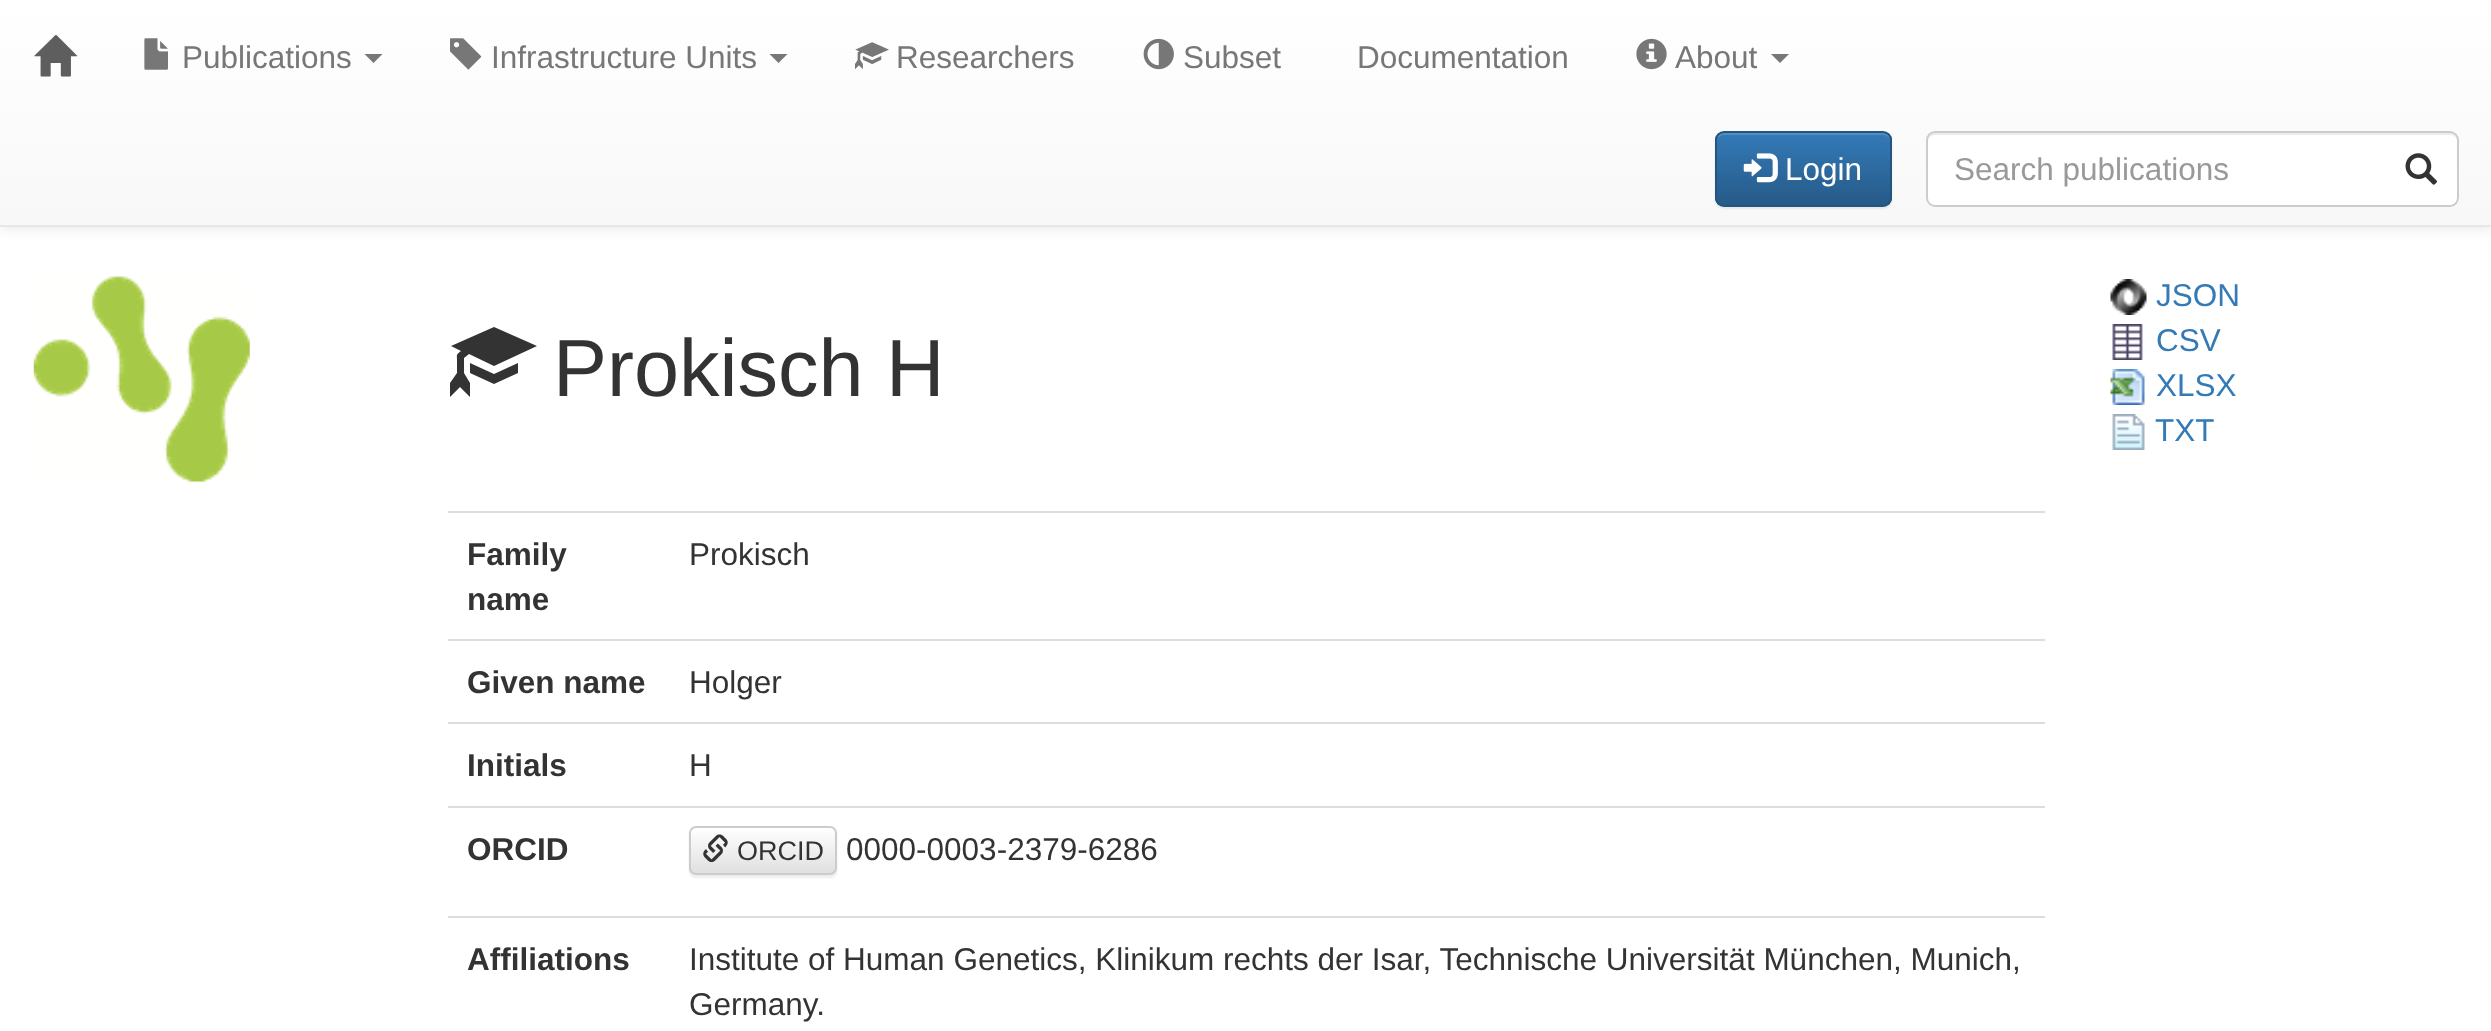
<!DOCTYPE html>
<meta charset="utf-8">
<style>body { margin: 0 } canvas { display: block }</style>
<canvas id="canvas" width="2491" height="1031"></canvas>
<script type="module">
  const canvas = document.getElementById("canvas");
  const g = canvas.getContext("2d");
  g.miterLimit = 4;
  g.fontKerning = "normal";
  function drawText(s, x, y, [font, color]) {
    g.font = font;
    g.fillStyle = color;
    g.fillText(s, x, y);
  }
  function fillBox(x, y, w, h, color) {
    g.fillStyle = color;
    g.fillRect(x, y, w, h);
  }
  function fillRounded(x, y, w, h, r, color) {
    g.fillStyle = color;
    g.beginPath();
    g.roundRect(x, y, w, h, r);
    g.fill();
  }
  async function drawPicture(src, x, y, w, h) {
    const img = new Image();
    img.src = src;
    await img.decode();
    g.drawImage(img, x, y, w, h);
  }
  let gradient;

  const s1 = ["31.5px Liberation Sans", "#777777"];
  const s2 = ["31.5px Liberation Sans", "#FFFFFF"];
  const s3 = ["31.5px Liberation Sans", "#999999"];
  const s4 = ["81px Liberation Sans", "#333333"];
  const s5 = ["31.5px Liberation Sans", "#337AB7"];
  const s6 = ["bold 31.5px Liberation Sans", "#333333"];
  const s7 = ["31.5px Liberation Sans", "#333333"];
  const s8 = ["27px Liberation Sans", "#333333"];

  fillBox(0, 0, 2491, 1031, "#FFFFFF");
  g.fillStyle = "rgba(0, 0, 0, 0.07)";
  g.filter = "blur(5.5px)";
  g.beginPath();
  g.rect(0, 2, 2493, 228);
  g.fill();
  g.filter = "none";
  gradient = g.createLinearGradient(1247, 0, 1247, 225);
  gradient.addColorStop(0, "#FFFFFF");
  gradient.addColorStop(1, "#F8F8F8");
  g.fillStyle = gradient;
  g.fillRect(0, 0, 2491, 225);
  fillBox(0, 225, 2491, 2, "#E7E7E7");
  await drawPicture("pic1.png", 34, 35, 44, 42);
  await drawPicture("pic2.png", 144, 38, 24, 32);
  drawText("Publications", 182, 68, s1);
  g.beginPath();
  g.moveTo(364.5, 54);
  g.lineTo(382.5, 54);
  g.lineTo(373.5, 63);
  g.closePath();
  g.fill();
  await drawPicture("pic3.png", 450, 38, 32, 32);
  drawText("Infrastructure Units", 491, 68, s1);
  g.beginPath();
  g.moveTo(769.5, 54);
  g.lineTo(787.5, 54);
  g.lineTo(778.5, 63);
  g.closePath();
  g.fill();
  await drawPicture("pic4.png", 855, 42, 34, 27);
  drawText("Researchers", 896, 68, s1);
  await drawPicture("pic5.png", 1143, 38, 31, 32);
  drawText("Subset", 1183, 68, s1);
  drawText("Documentation", 1357, 68, s1);
  await drawPicture("pic6.png", 1636, 38, 31, 32);
  drawText("About", 1675, 68, s1);
  g.beginPath();
  g.moveTo(1771, 54);
  g.lineTo(1789, 54);
  g.lineTo(1780, 63);
  g.closePath();
  g.fill();
  g.fillStyle = "rgba(0, 0, 0, 0.07)";
  g.filter = "blur(1px)";
  g.beginPath();
  g.roundRect(1715, 133, 177, 76, 9);
  g.fill();
  g.filter = "none";
  g.save();
  g.beginPath();
  g.roundRect(1715, 131, 177, 76, 9);
  g.clip();
  gradient = g.createLinearGradient(1803, 133, 1803, 205);
  gradient.addColorStop(0, "#337AB7");
  gradient.addColorStop(1, "#265A88");
  g.fillStyle = gradient;
  g.fillRect(1715, 133, 177, 72);
  g.restore();
  g.fillStyle = "rgba(255, 255, 255, 0.15)";
  g.beginPath();
  g.moveTo(1724, 135);
  g.lineTo(1883, 135);
  g.bezierCurveTo(1887, 135, 1890, 138, 1890, 142);
  g.lineTo(1890, 140);
  g.bezierCurveTo(1890, 136, 1887, 133, 1883, 133);
  g.lineTo(1724, 133);
  g.bezierCurveTo(1720, 133, 1717, 136, 1717, 140);
  g.lineTo(1717, 142);
  g.bezierCurveTo(1717, 138, 1720, 135, 1724, 135);
  g.closePath();
  g.fill();
  g.beginPath();
  g.roundRect(1716, 132, 175, 74, 8);
  g.strokeStyle = "#245580";
  g.lineWidth = 2;
  g.stroke();
  await drawPicture("pic7.png", 1743, 153, 35, 30);
  drawText("Login", 1785, 180, s2);
  fillRounded(1926, 131, 533, 76, 9, "#FFFFFF");
  g.fillStyle = "#ECECEC";
  g.beginPath();
  g.moveTo(1935, 135);
  g.lineTo(2450, 135);
  g.bezierCurveTo(2454, 135, 2457, 138, 2457, 142);
  g.bezierCurveTo(2457, 138, 2455, 133, 2450, 133);
  g.lineTo(1935, 133);
  g.bezierCurveTo(1930, 133, 1928, 138, 1928, 142);
  g.bezierCurveTo(1928, 138, 1931, 135, 1935, 135);
  g.closePath();
  g.fill();
  g.beginPath();
  g.roundRect(1927, 132, 531, 74, 8);
  g.strokeStyle = "#CCCCCC";
  g.stroke();
  drawText("Search publications", 1954, 180, s3);
  await drawPicture("pic8.png", 2405, 153, 32, 32);
  await drawPicture("pic9.png", 33, 276, 217, 207);
  g.fillStyle = "#333333";
  g.beginPath();
  g.moveTo(537, 346);
  g.lineTo(494, 366);
  g.lineTo(469, 354);
  g.lineTo(464, 358);
  g.lineTo(464, 373);
  g.lineTo(470, 383);
  g.lineTo(470, 397);
  g.lineTo(460, 387);
  g.lineTo(450, 397);
  g.lineTo(450, 383);
  g.lineTo(457, 373);
  g.lineTo(457, 359);
  g.bezierCurveTo(457, 354, 456, 355, 461, 351);
  g.lineTo(451, 346);
  g.lineTo(494, 327);
  g.closePath();
  g.moveTo(518, 373);
  g.lineTo(494, 384);
  g.lineTo(470, 373);
  g.lineTo(470, 363);
  g.lineTo(494, 374);
  g.lineTo(518, 363);
  g.closePath();
  g.fill();
  drawText("Prokisch H", 553, 396, s4);
  await drawPicture("pic10.png", 2110, 279, 37, 36);
  drawText("JSON", 2156, 306, s5);
  await drawPicture("pic11.png", 2112, 324, 31, 36);
  drawText("CSV", 2156, 351, s5);
  await drawPicture("pic12.png", 2110, 369, 35, 36);
  drawText("XLSX", 2156, 396, s5);
  await drawPicture("pic13.png", 2112, 414, 33, 36);
  drawText("TXT", 2155, 441, s5);
  drawText("Family", 467, 565, s6);
  drawText("name", 467, 610, s6);
  fillBox(448, 511, 1597, 2, "#DDDDDD");
  drawText("Prokisch", 689, 565, s7);
  drawText("Given name", 467, 693, s6);
  fillBox(448, 639, 1597, 2, "#DDDDDD");
  drawText("Holger", 689, 693, s7);
  drawText("Initials", 467, 776, s6);
  fillBox(448, 722, 1597, 2, "#DDDDDD");
  drawText("H", 689, 776, s7);
  drawText("ORCID", 467, 860, s6);
  fillBox(448, 806, 1597, 2, "#DDDDDD");
  g.fillStyle = "rgba(0, 0, 0, 0.07)";
  g.filter = "blur(1px)";
  g.beginPath();
  g.roundRect(689, 828, 148, 50, 7);
  g.fill();
  g.filter = "none";
  g.save();
  g.beginPath();
  g.roundRect(689, 826, 148, 49, 7);
  g.clip();
  gradient = g.createLinearGradient(763, 828, 763, 873);
  gradient.addColorStop(0, "#FFFFFF");
  gradient.addColorStop(1, "#E0E0E0");
  g.fillStyle = gradient;
  g.fillRect(689, 828, 148, 45);
  g.restore();
  g.beginPath();
  g.roundRect(690, 827, 146, 47, 6);
  g.stroke();
  await drawPicture("pic14.png", 703, 834, 25, 29);
  drawText("ORCID", 737, 860, s8);
  drawText("0000-0003-2379-6286", 846, 860, s7);
  drawText("Affiliations", 467, 970, s6);
  fillBox(448, 916, 1597, 2, "#DDDDDD");
  drawText("Institute of Human Genetics, Klinikum rechts der Isar, Technische Universität München, Munich,", 689, 970, s7);
  drawText("Germany.", 689, 1015, s7);
</script>
